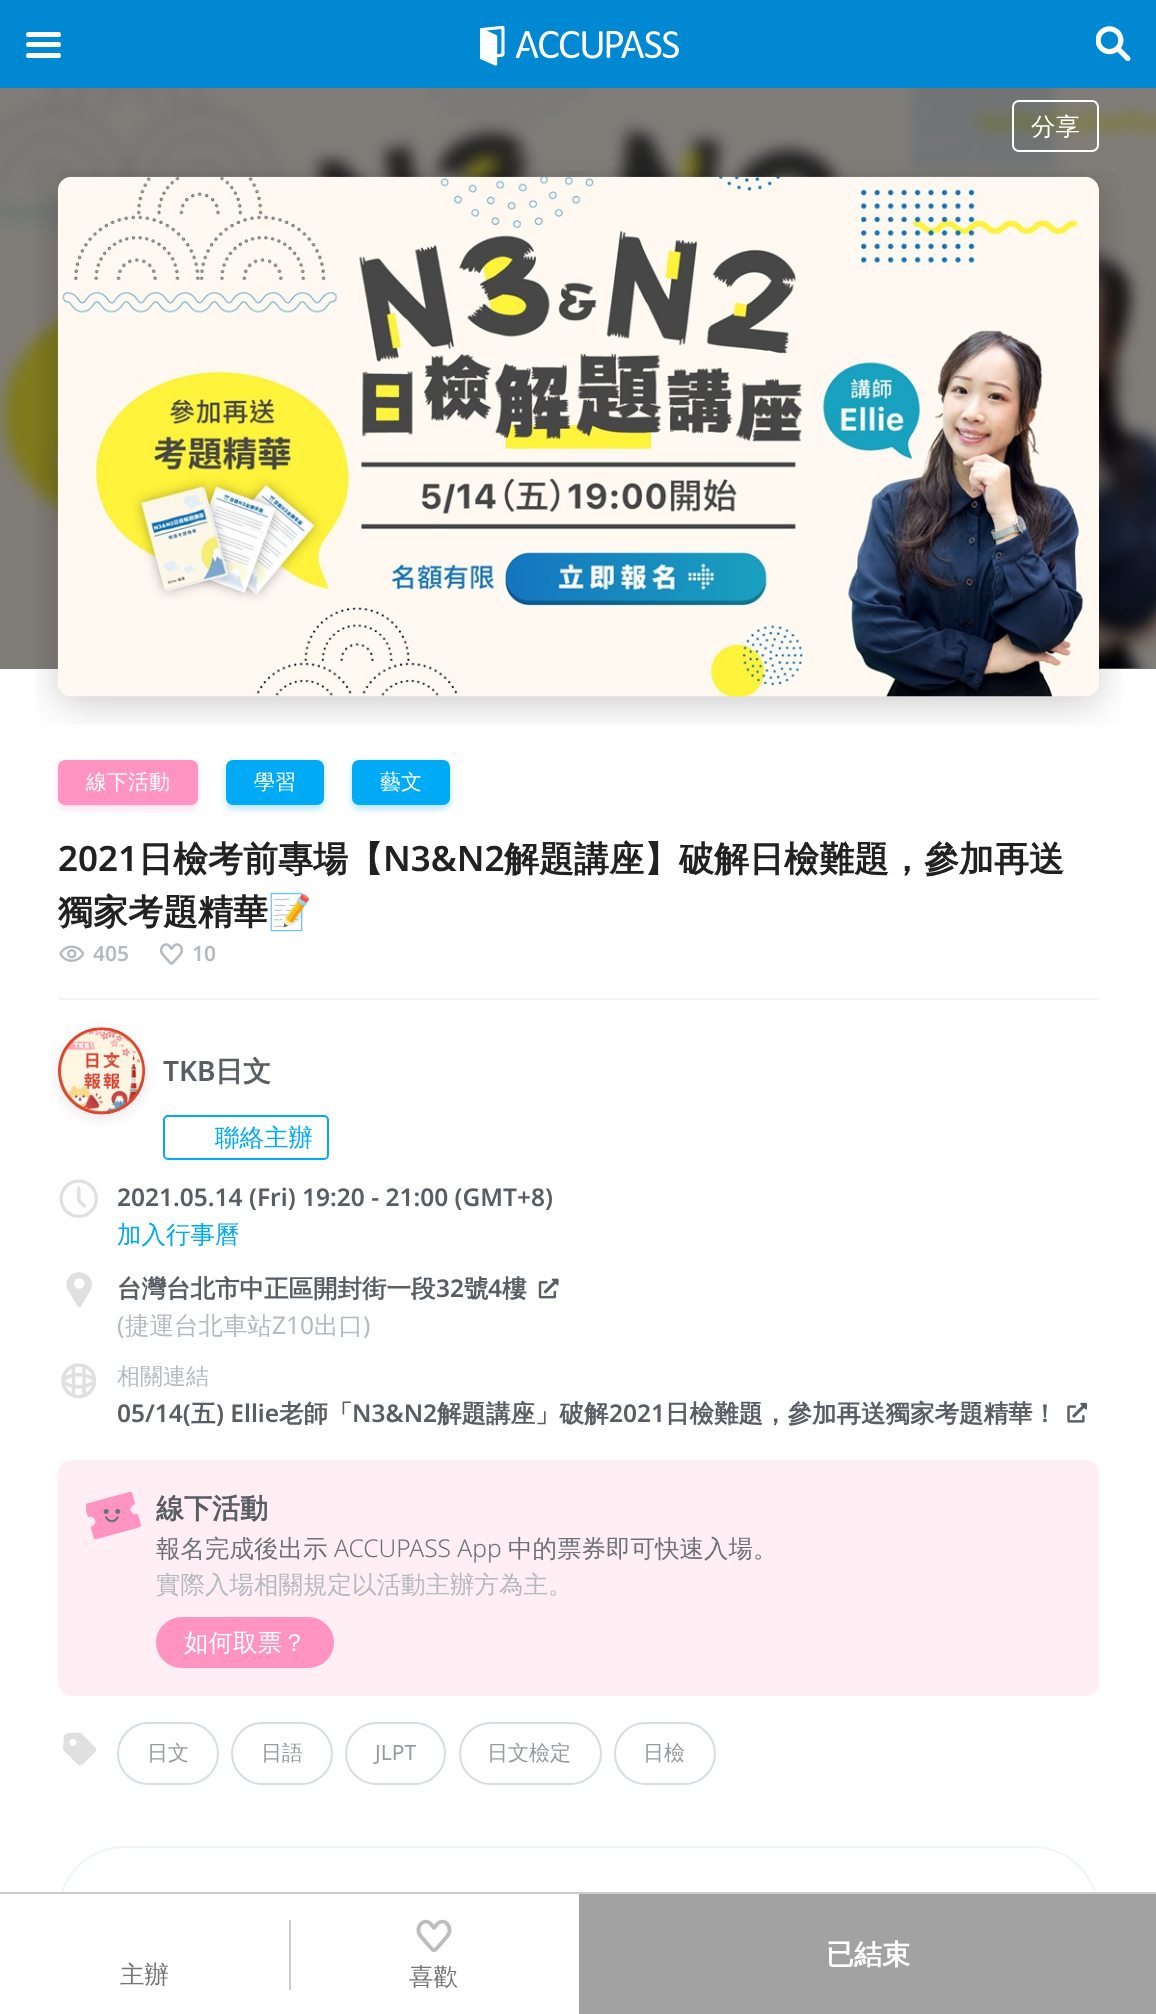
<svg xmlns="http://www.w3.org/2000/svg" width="1156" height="2014">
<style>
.a{font:500 24.5px WenQuanYi Zen Hei;fill:#fff}
.b{font:500 21px WenQuanYi Zen Hei;fill:#fff}
.c{font:600 35px Noto Sans;fill:#212121}
.d{font:bold 35px WenQuanYi Zen Hei;fill:#212121}
.e{font:bold 35px Noto Color Emoji;fill:#212121}
.f{font:600 21px Noto Sans;fill:#b5bac1}
.g{font:600 28px Noto Sans;fill:#595e64}
.h{font:bold 28px WenQuanYi Zen Hei;fill:#595e64}
.i{font:500 24.5px WenQuanYi Zen Hei;fill:#00aaf5}
.j{font:600 24.5px Noto Sans;fill:#595e64}
.k{font:bold 24.5px WenQuanYi Zen Hei;fill:#595e64}
.l{font:24.5px Noto Sans;fill:#b5bac1}
.m{font:500 24.5px WenQuanYi Zen Hei;fill:#b5bac1}
.n{font:500 23px WenQuanYi Zen Hei;fill:#b5bac1}
.o{font:500 24.5px WenQuanYi Zen Hei;fill:#6d7278}
.p{font:300 24.5px Noto Sans;fill:#6d7278}
.q{font:500 21px WenQuanYi Zen Hei;fill:#959ba1}
.r{font:21px Noto Sans;fill:#959ba1}
.s{font:bold 28px WenQuanYi Zen Hei;fill:#fff}
.t{font:500 24.5px WenQuanYi Zen Hei;fill:#757575}
</style>
<rect width="100%" height="100%" fill="#fff"/>
<path fill="#0088d2" d="M0 0h1156v88H0z"/>
<image href="1.png" x="480" y="25" width="199" height="41"/>
<rect fill="#fff" x="26" y="32" width="35" height="5" rx="2.5"/>
<rect fill="#fff" x="26" y="42" width="35" height="5" rx="2.5"/>
<rect fill="#fff" x="26" y="53" width="35" height="5" rx="2.5"/>
<image href="2.png" x="1096" y="26" width="35" height="35"/>
<path fill="#808080" d="M0 667h1156v2H0z"/>
<image href="3.png" x="0" y="88" width="1156" height="581"/>
<rect fill="none" stroke="#fff" stroke-width="2" x="1013" y="101" width="85" height="50" rx="6"/>
<rect fill="#0000001a" filter="blur(14px)" x="58" y="184" width="1041" height="520" rx="14"/>
<image href="4.png" x="36" y="171" width="1085" height="554"/>
<rect fill="#ff93c24d" filter="blur(3.5px)" x="58" y="763" width="140" height="46" rx="7"/>
<rect fill="#ff93c2" x="58" y="760" width="140" height="45" rx="7"/>
<rect fill="#00aaf54d" filter="blur(3.5px)" x="226" y="763" width="98" height="46" rx="7"/>
<rect fill="#00aaf5" x="226" y="760" width="98" height="45" rx="7"/>
<rect fill="#00aaf54d" filter="blur(3.5px)" x="352" y="763" width="98" height="46" rx="7"/>
<rect fill="#00aaf5" x="352" y="760" width="98" height="45" rx="7"/>
<image href="5.png" x="59" y="945" width="26" height="17"/>
<image href="6.png" x="159" y="943" width="25" height="22"/>
<path fill="#f5f5f5" d="M58 998h1041v2H58z"/>
<rect fill="none" stroke="#00aaf5" stroke-width="2" x="164" y="1116" width="164" height="43" rx="4"/>
<rect fill="#0000001a" filter="blur(7px)" x="58" y="1031" width="87" height="87" rx="43.5"/>
<image href="7.png" x="57" y="1027" width="89" height="88"/>
<image href="8.png" x="59" y="1179" width="39" height="39"/>
<image href="9.png" x="66" y="1272" width="26" height="36"/>
<image href="10.png" x="538" y="1278" width="21" height="21"/>
<image href="11.png" x="61" y="1363" width="36" height="36"/>
<image href="12.png" x="1067" y="1402" width="21" height="21"/>
<rect fill="#ffeef3" x="58" y="1460" width="1041" height="236" rx="14"/>
<image href="13.png" x="86" y="1491" width="55" height="49"/>
<rect fill="#ff93c2" x="156" y="1617" width="178" height="51" rx="25.5"/>
<image href="14.png" x="63" y="1732" width="33" height="34"/>
<rect fill="none" stroke="#d8dde4" stroke-width="2" x="118" y="1723" width="100" height="61" rx="30.5"/>
<rect fill="none" stroke="#d8dde4" stroke-width="2" x="232" y="1723" width="100" height="61" rx="30.5"/>
<rect fill="none" stroke="#d8dde4" stroke-width="2" x="346" y="1723" width="99" height="61" rx="30.5"/>
<rect fill="none" stroke="#d8dde4" stroke-width="2" x="460" y="1723" width="141" height="61" rx="30.5"/>
<rect fill="none" stroke="#d8dde4" stroke-width="2" x="615" y="1723" width="100" height="61" rx="30.5"/>
<rect fill="none" stroke="#eff4fb" stroke-width="2" x="59" y="1847" width="1039" height="131" rx="65.5"/>
<path fill="#fff" d="M58 1894h521v85H58z"/>
<path fill="#ccc" d="M0 1892h1156v2H0z"/>
<path fill="#a2a2a2" d="M579 1894h577v120H579z"/>
<path fill="#ccc" d="M289 1920h2v70H289z"/>
<image href="15.png" x="416" y="1919" width="36" height="33"/>
<text class="a" x="1031" y="135">分享</text>
<text class="b" x="86" y="789">線下活動</text>
<text class="b" x="254" y="789">學習</text>
<text class="b" x="380" y="789">藝文</text>
<text class="c" x="58" y="871">2021</text>
<text class="d" x="138" y="871">日檢考前專場【</text>
<text class="c" x="383" y="871">N3&amp;N2</text>
<text class="d" x="504" y="871">解題講座】破解日檢難題，參加再送</text>
<text class="d" x="58" y="924">獨家考題精華</text>
<text class="e" x="268" y="924">📝</text>
<text class="f" x="93" y="961">405</text>
<text class="f" x="192" y="961">10</text>
<text class="g" x="163" y="1081">TKB</text>
<text class="h" x="215" y="1081">日文</text>
<text class="i" x="215" y="1146">聯絡主辦</text>
<text class="j" x="117" y="1206">2021.05.14 (Fri) 19:20 - 21:00 (GMT+8)</text>
<text class="i" x="117" y="1243">加入行事曆</text>
<text class="k" x="117" y="1297">台灣台北市中正區開封街一段</text>
<text class="j" x="436" y="1297">32</text>
<text class="k" x="464" y="1297">號</text>
<text class="j" x="488" y="1297">4</text>
<text class="k" x="502" y="1297">樓</text>
<text class="l" x="117" y="1334">(</text>
<text class="m" x="125" y="1334">捷運台北車站</text>
<text class="l" x="272" y="1334">Z10</text>
<text class="m" x="314" y="1334">出口</text>
<text class="l" x="363" y="1334">)</text>
<text class="n" x="117" y="1384">相關連結</text>
<text class="j" x="117" y="1422">05/14(</text>
<text class="k" x="191" y="1422">五</text>
<text class="j" x="216" y="1422">) Ellie</text>
<text class="k" x="279" y="1422">老師「</text>
<text class="j" x="352" y="1422">N3&amp;N2</text>
<text class="k" x="437" y="1422">解題講座」破解</text>
<text class="j" x="609" y="1422">2021</text>
<text class="k" x="665" y="1422">日檢難題，參加再送獨家考題精華！</text>
<text class="h" x="156" y="1518">線下活動</text>
<text class="o" x="156" y="1557">報名完成後出示</text>
<text class="p" x="334" y="1557">ACCUPASS App</text>
<text class="o" x="508" y="1557">中的票券即可快速入場。</text>
<text class="m" x="156" y="1593">實際入場相關規定以活動主辦方為主。</text>
<text class="a" x="184" y="1651">如何取票？</text>
<text class="q" x="147" y="1760">日文</text>
<text class="q" x="261" y="1760">日語</text>
<text class="r" x="375" y="1760">JLPT</text>
<text class="q" x="487" y="1760">日文檢定</text>
<text class="q" x="643" y="1760">日檢</text>
<text class="s" x="826" y="1964">已結束</text>
<text class="t" x="120" y="1983">主辦</text>
<text class="t" x="409" y="1985">喜歡</text>
</svg>
